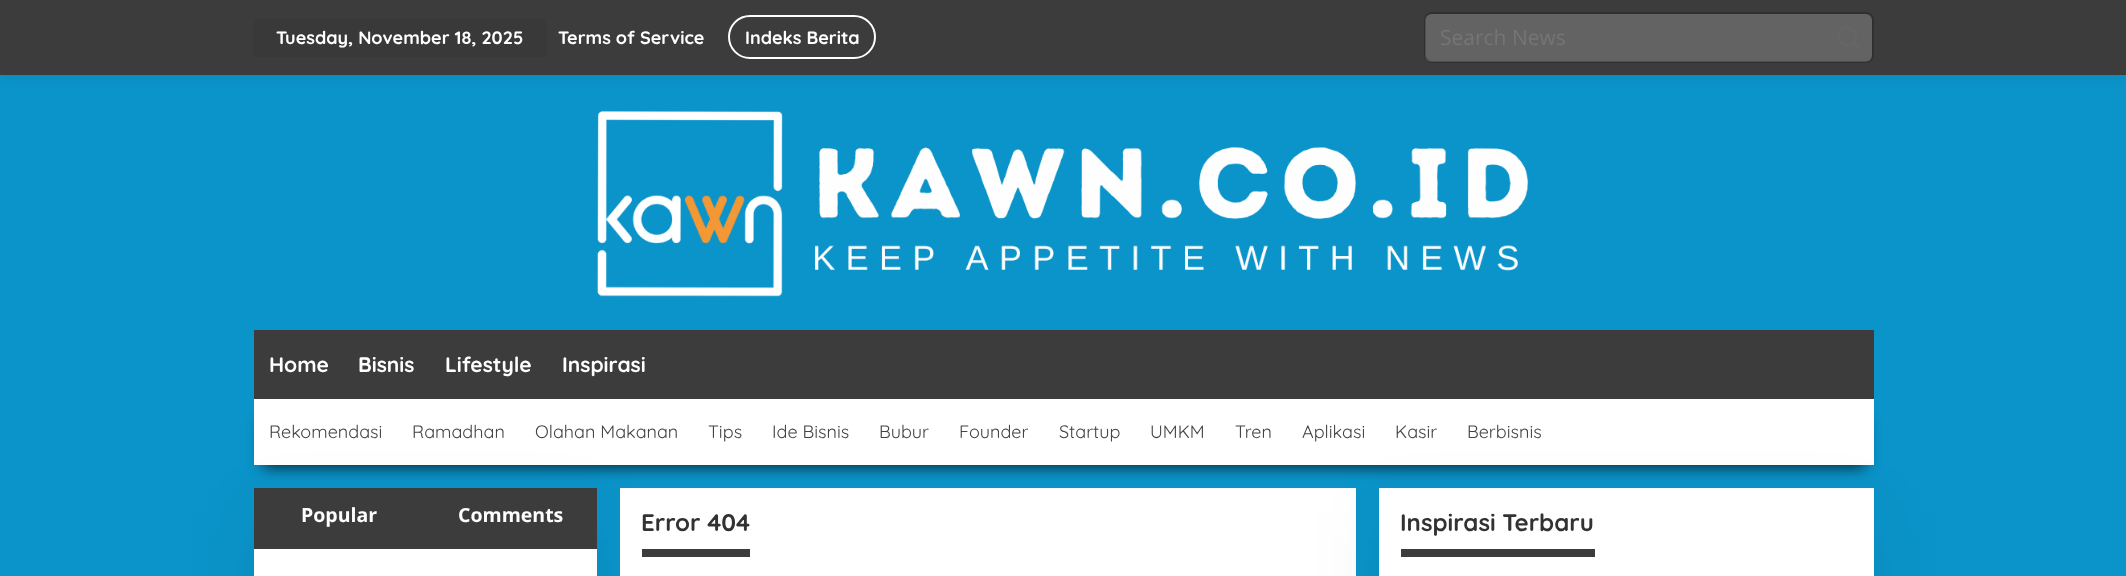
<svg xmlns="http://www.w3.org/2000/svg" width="2126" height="576">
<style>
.a{font:bold 18px Quicksand;fill:#fff}
.b{font:21px Open Sans;fill:#757575}
.c{font:bold 21px Quicksand;fill:#fff}
.d{font:18px Quicksand;fill:#444}
.e{font:bold 19.5px Open Sans;fill:#fff}
.f{font:bold 24px Quicksand;fill:#323233}
</style>
<rect width="100%" height="100%" fill="#0b94c9"/>
<path fill="#0000001a" filter="blur(7.5px)" d="M0 0h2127v75H0z"/>
<path fill="#3c3c3c" d="M0 0h2126v75H0z"/>
<path fill="#393939" d="M254 18h292v39H254z"/>
<rect fill="none" stroke="#fff" stroke-width="2" x="729" y="16" width="146" height="42" rx="21"/>
<rect fill="#636363" x="1425" y="14" width="447" height="48" rx="6"/>
<rect fill="none" stroke="#00000033" stroke-width="2" x="1425" y="13" width="448" height="49" rx="7"/>
<circle fill="none" stroke="#666" stroke-width="2.2" cx="1847" cy="36.5" r="9"/>
<path fill="none" stroke="#666" stroke-width="2.2" stroke-linecap="round" stroke-linejoin="round" d="M1858 47.5l-5-5"/>
<image href="1.png" x="597" y="111" width="932" height="186"/>
<path fill="#3c3c3c" d="M254 330h1620v69H254z"/>
<path fill="#000000bf" filter="blur(7.5px)" d="M263 419h1602v48H263z"/>
<path fill="#fff" d="M254 399h1620v66H254z"/>
<path fill="#00000012" filter="blur(34px)" d="M254 512h343v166H254z"/>
<path fill="#fff" d="M254 549h343v27H254z"/>
<path fill="#3c3c3c" d="M254 488h343v61H254z"/>
<path fill="#fff" d="M620 488h736v88H620z"/>
<path fill="#3c3c3c" d="M642 549h108v8H642z"/>
<path fill="#00000012" filter="blur(34px)" d="M1379 512h495v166H1379z"/>
<path fill="#fff" d="M1379 488h495v88H1379z"/>
<path fill="#3c3c3c" d="M1401 549h194v8H1401z"/>
<text class="a" x="276" y="44">Tuesday, November 18, 2025</text>
<text class="a" x="558" y="44">Terms of Service</text>
<text class="a" x="745" y="44">Indeks Berita</text>
<text class="b" x="1440" y="45">Search News</text>
<text class="c" x="269" y="372">Home</text>
<text class="c" x="358" y="372">Bisnis</text>
<text class="c" x="445" y="372">Lifestyle</text>
<text class="c" x="562" y="372">Inspirasi</text>
<text class="d" x="269" y="438">Rekomendasi</text>
<text class="d" x="412" y="438">Ramadhan</text>
<text class="d" x="535" y="438">Olahan Makanan</text>
<text class="d" x="708" y="438">Tips</text>
<text class="d" x="772" y="438">Ide Bisnis</text>
<text class="d" x="879" y="438">Bubur</text>
<text class="d" x="959" y="438">Founder</text>
<text class="d" x="1059" y="438">Startup</text>
<text class="d" x="1150" y="438">UMKM</text>
<text class="d" x="1235" y="438">Tren</text>
<text class="d" x="1302" y="438">Aplikasi</text>
<text class="d" x="1395" y="438">Kasir</text>
<text class="d" x="1467" y="438">Berbisnis</text>
<text class="e" x="301" y="522">Popular</text>
<text class="e" x="458" y="522">Comments</text>
<text class="f" x="641" y="531">Error 404</text>
<text class="f" x="1400" y="531">Inspirasi Terbaru</text>
</svg>
